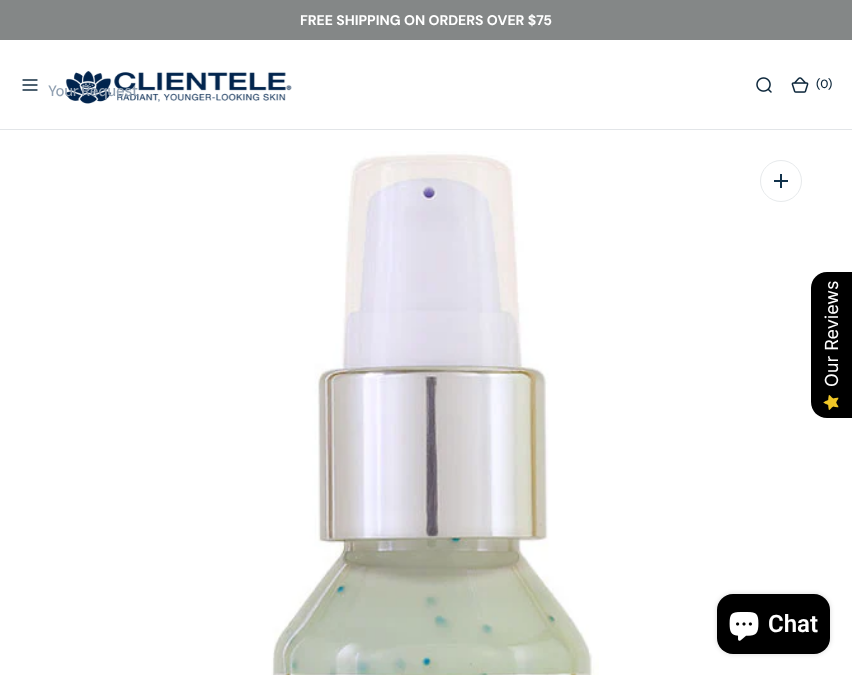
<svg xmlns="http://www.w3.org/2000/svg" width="852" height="675">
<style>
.a{font:bold 14px DM Sans;fill:#fff}
.b{font:500 15px 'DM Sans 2';letter-spacing:-0.25px;fill:#93a2b3}
.c{font:500 12px DM Sans;fill:#0e283c}
.d{font:18px Inter;fill:#fff}
.e{font:600 24px Roboto;fill:#fff}
</style>
<rect width="100%" height="100%" fill="#fff"/>
<path fill="#848787" d="M0 0h852v40H0z"/>
<path fill="#e2e5e8" d="M0 129h852v1H0z"/>
<image href="1.png" x="22" y="79" width="16" height="12"/>
<image href="2.png" x="65" y="71" width="227" height="33"/>
<image href="3.png" x="756" y="77" width="16" height="16"/>
<image href="4.png" x="791" y="77" width="18" height="16"/>
<image href="5.png" x="271" y="151" width="328" height="524"/>
<circle fill="none" stroke="#e7eaec" cx="781" cy="181" r="20.5"/>
<image href="6.png" x="774" y="174" width="14" height="14"/>
<path fill="#000" d="M811 402v-114c0-9 7-16 16-16h25v146h-25c-9 0-16-7-16-16z"/>
<image href="7.png" x="823" y="395" width="16" height="15"/>
<rect fill="#00000026" filter="blur(2.5px)" x="717" y="594" width="113" height="60" rx="16"/>
<rect fill="#000" x="717" y="594" width="113" height="60" rx="16"/>
<image href="8.png" x="729" y="612" width="30" height="29"/>
<text class="a" x="300" y="25">FREE SHIPPING ON ORDERS OVER $75</text>
<text class="b" x="48" y="96" word-spacing="-1">Your Request</text>
<text class="c" x="816" y="88">(0)</text>
<text class="d" x="838" y="387" transform="rotate(-90 838 387)">Our Reviews</text>
<text class="e" x="768" y="632">Chat</text>
</svg>
